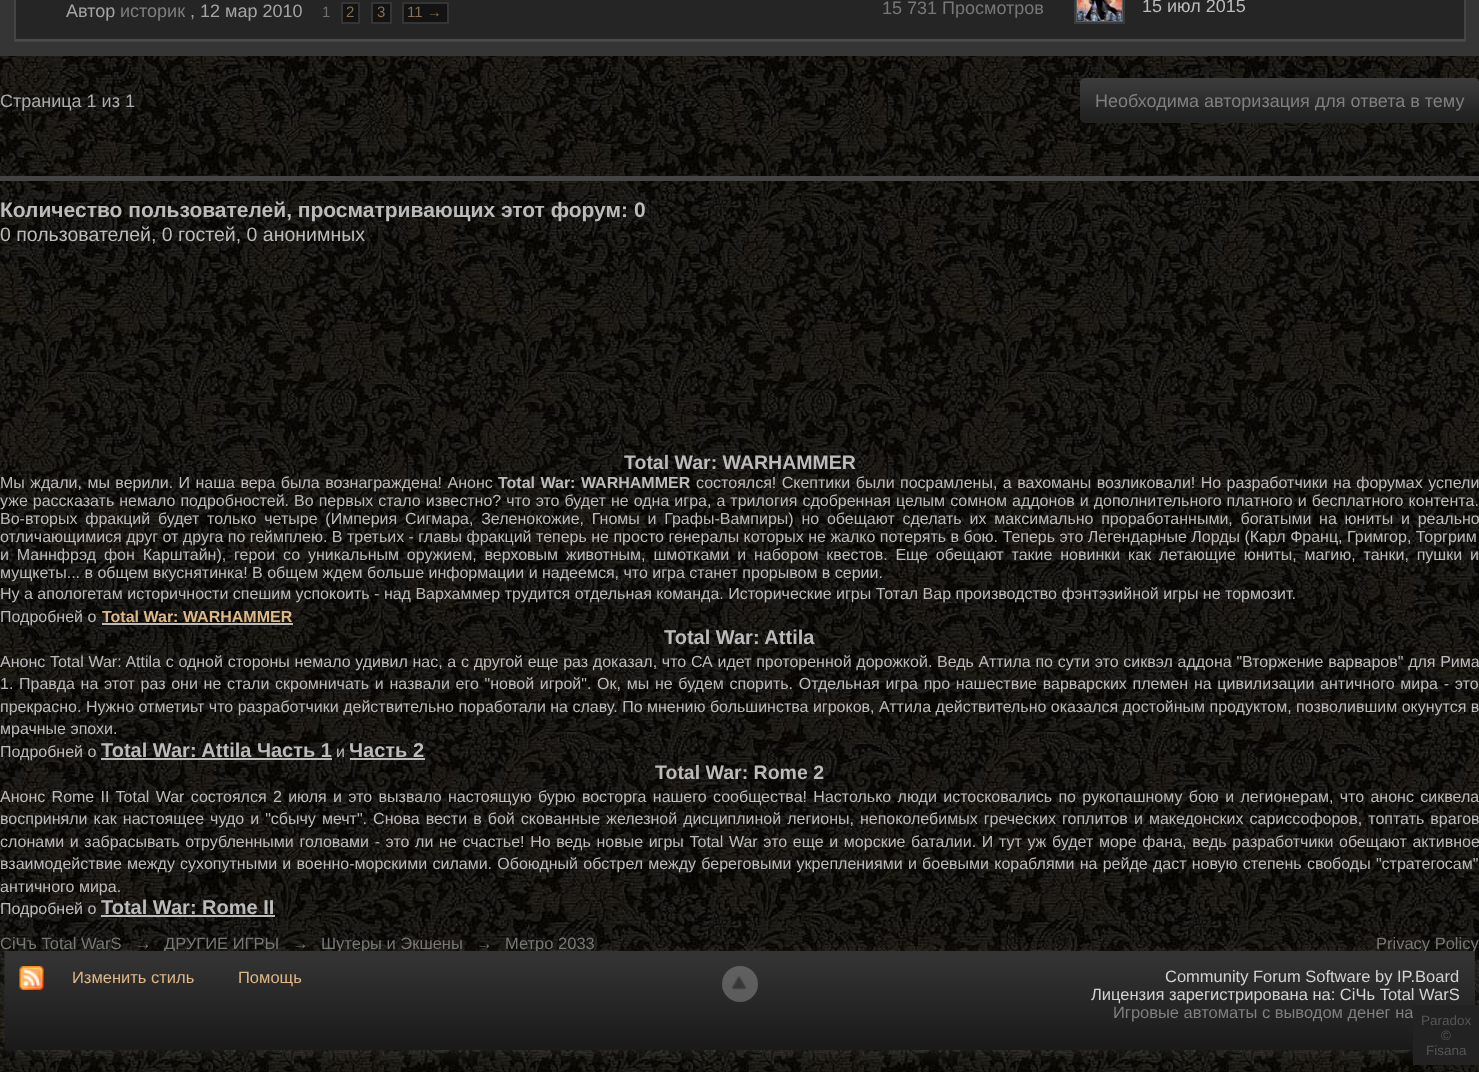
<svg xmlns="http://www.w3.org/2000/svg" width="1479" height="1072">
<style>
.a{font:18px Liberation Sans;fill:#a4a4a4}
.b{font:18px Liberation Sans;fill:#7f7f7f}
.c{font:15px Liberation Sans;fill:#707070}
.d{font:15px Liberation Sans;fill:#826f56}
.e{font:18px Liberation Sans;fill:#777}
.f{font:18px Liberation Sans;fill:#bbb}
.g{font:18px Liberation Sans;fill:#acacac}
.h{font:bold 21px Liberation Sans;fill:#bbb}
.i{font:19.5px Liberation Sans;fill:#bbb}
.j{font:bold 19.5px Liberation Sans;fill:#bbb}
.k{font:16px Liberation Sans;fill:#bbb}
.l{font:bold 16px Liberation Sans;fill:#bbb}
.m{font:bold 16px Liberation Sans;fill:#deb887}
.n{font:bold 20px Liberation Sans;fill:#bbb}
.o{font:16.5px Liberation Sans;fill:#777}
.p{font:16.5px Liberation Sans;fill:#deb887}
.q{font:16.5px Liberation Sans;fill:#d2d2d2}
.r{font:16.5px Liberation Sans;fill:#7f7f7f}
.s{font:13.5px Liberation Sans;fill:#555}
</style>
<rect width="100%" height="100%" fill="#fff"/>
<image href="1.png" x="0" y="56" width="1479" height="1016"/>
<path fill="#353535" d="M0 0h1479v56H0z"/>
<path fill="#252525" d="M16 0h1448v39H16z"/>
<path fill="none" stroke="#444" stroke-width="2" d="M15 -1h1450v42H15z"/>
<path fill="#131313" stroke="#353535" stroke-width="2" d="M342 3h17v20H342z"/>
<path fill="#131313" stroke="#353535" stroke-width="2" d="M372 3h19v20H372z"/>
<path fill="#131313" stroke="#353535" stroke-width="2" d="M403 3h45v20H403z"/>
<path fill="#4b4b4b" d="M15 39h1451v2H15z"/>
<path fill="#5b5b5b" stroke="#3b3b3b" stroke-width="2" d="M1075 -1h49v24H1075z"/>
<image href="2.png" x="1077" y="0" width="45" height="21"/>
<rect fill="#212121" x="1080" y="78" width="399" height="45" rx="5"/>
<image href="3.png" x="1080" y="78" width="399" height="42"/>
<path fill="#444" d="M0 176h1479v5H0z"/>
<path fill="#bbb" d="M102 623h191v2H102z"/>
<path fill="#bbb" d="M101 758h231v2H101z"/>
<path fill="#bbb" d="M350 758h75v2H350z"/>
<path fill="#bbb" d="M101 915h174v2H101z"/>
<path fill="#ffffff1a" filter="blur(7px)" d="M5 954h1470v99H5z"/>
<text class="a" x="66" y="17">Автор</text>
<text class="b" x="120" y="17">историк</text>
<text class="a" x="190" y="17">, 12 мар 2010</text>
<text class="c" x="322" y="17">1</text>
<text class="d" x="346" y="17">2</text>
<text class="d" x="377" y="17">3</text>
<text class="d" x="407" y="17">11 →</text>
<text class="e" x="882" y="14">15 731 Просмотров</text>
<text class="f" x="1142" y="12">15 июл 2015</text>
<text class="g" x="0" y="107">Страница 1 из 1</text>
<text class="b" x="1095" y="107">Необходима авторизация для ответа в тему</text>
<text class="h" x="0" y="217">Количество пользователей, просматривающих этот форум: 0</text>
<text class="i" x="0" y="241">0 пользователей, 0 гостей, 0 анонимных</text>
<text class="j" x="624" y="469">Total War: WARHAMMER</text>
<text class="k" x="0" y="488" word-spacing="1">Мы ждали, мы верили. И наша вера была вознаграждена! Анонс</text>
<text class="l" x="498" y="488" word-spacing="1">Total War: WARHAMMER</text>
<text class="k" x="696" y="488" word-spacing="1">состоялся! Скептики были посрамлены, а вахоманы возликовали! Но разработчики на форумах успели</text>
<text class="k" x="0" y="506" word-spacing="0.6">уже рассказать немало подробностей. Во первых стало известно? что это будет не одна игра, а трилогия сдобренная целым сомном аддонов и дополнительного платного и бесплатного контента.</text>
<text class="k" x="0" y="524" word-spacing="3.3">Во-вторых фракций будет только четыре (Империя Сигмара, Зеленокожие, Гномы и Графы-Вампиры) но обещают сделать их максимально проработанными, богатыми на юниты и реально</text>
<text class="k" x="0" y="542">отличающимися друг от друга по геймплею. В третьих - главы фракций теперь не просто генералы которых не жалко потерять в бою. Теперь это Легендарные Лорды (Карл Франц, Гримгор, Торгрим</text>
<text class="k" x="0" y="560" word-spacing="3.4">и Маннфрэд фон Карштайн), герои со уникальным оружием, верховым животным, шмотками и набором квестов. Еще обещают такие новинки как летающие юниты, магию, танки, пушки и</text>
<text class="k" x="0" y="578">мущкеты... в общем вкуснятинка! В общем ждем больше информации и надеемся, что игра станет прорывом в серии.</text>
<text class="k" x="0" y="599">Ну а апологетам историчности спешим успокоить - над Вархаммер трудится отдельная команда. Исторические игры Тотал Вар производство фэнтэзийной игры не тормозит.</text>
<text class="k" x="0" y="622">Подробней о</text>
<text class="m" x="102" y="622">Total War: WARHAMMER</text>
<text class="n" x="664" y="644">Total War: Attila</text>
<text class="k" x="0" y="667" word-spacing="0.25">Анонс Total War: Attila с одной стороны немало удивил нас, а с другой еще раз доказал, что СА идет проторенной дорожкой. Ведь Аттила по сути это сиквэл аддона "Вторжение варваров" для Рима</text>
<text class="k" x="0" y="689" word-spacing="1.25">1. Правда на этот раз они не стали скромничать и назвали его "новой игрой". Ок, мы не будем спорить. Отдельная игра про нашествие варварских племен на цивилизации античного мира - это</text>
<text class="k" x="0" y="712">прекрасно. Нужно отметиьт что разработчики действительно поработали на славу. По мнению большинства игроков, Аттила действительно оказался достойным продуктом, позволившим окунутся в</text>
<text class="k" x="0" y="734">мрачные эпохи.</text>
<text class="k" x="0" y="757">Подробней о</text>
<text class="n" x="101" y="757">Total War: Attila Часть 1</text>
<text class="k" x="336" y="757">и</text>
<text class="n" x="349" y="757">Часть 2</text>
<text class="j" x="655" y="779">Total War: Rome 2</text>
<text class="k" x="0" y="802" word-spacing="1.9">Анонс Rome II Total War состоялся 2 июля и это вызвало настоящую бурю восторга нашего сообщества! Настолько люди истосковались по рукопашному бою и легионерам, что анонс сиквела</text>
<text class="k" x="0" y="824" word-spacing="1.6">восприняли как настоящее чудо и "сбычу мечт". Снова вести в бой скованные железной дисциплиной легионы, непоколебимых греческих гоплитов и македонских сариссофоров, топтать врагов</text>
<text class="k" x="0" y="847" word-spacing="1.2">слонами и забрасывать отрубленными головами - это ли не счастье! Но ведь новые игры Total War это еще и морские баталии. И тут уж будет море фана, ведь разработчики обещают активное</text>
<text class="k" x="0" y="869" word-spacing="0.8">взаимодействие между сухопутными и военно-морскими силами. Обоюдный обстрел между береговыми укреплениями и боевыми кораблями на рейде даст новую степень свободы "стратегосам"</text>
<text class="k" x="0" y="892">античного мира.</text>
<text class="k" x="0" y="914">Подробней о</text>
<text class="n" x="101" y="914">Total War: Rome II</text>
<text class="o" x="0" y="949">СiЧъ Total WarS</text>
<text class="o" x="135" y="949">→</text>
<text class="o" x="164" y="949">ДРУГИЕ ИГРЫ</text>
<text class="o" x="292" y="949">→</text>
<text class="o" x="321" y="949">Шутеры и Экшены</text>
<text class="o" x="476" y="949">→</text>
<text class="o" x="505" y="949">Метро 2033</text>
<text class="o" x="1376" y="949">Privacy Policy</text>
<path fill="#2b2b2b" d="M1474 951h1v54H1474z"/>
<image href="4.png" x="4" y="951" width="1471" height="99"/>
<image href="5.png" x="19" y="966" width="25" height="24"/>
<text class="p" x="72" y="983">Изменить стиль</text>
<text class="p" x="238" y="983">Помощь</text>
<circle fill="#aaaaaa66" cx="740" cy="984" r="18"/>
<image href="6.png" x="732" y="976" width="15" height="14"/>
<text class="q" x="1165" y="982">Community Forum Software by IP.Board</text>
<text class="q" x="1091" y="1000">Лицензия зарегистрирована на: СiЧь Total WarS</text>
<text class="r" x="1113" y="1018">Игровые автоматы с выводом денег на</text>
<path fill="#222" d="M1413 1005h66v60H1413z"/>
<text class="s" x="1421" y="1025">Paradox</text>
<text class="s" x="1441" y="1040">©</text>
<text class="s" x="1426" y="1055">Fisana</text>
</svg>
